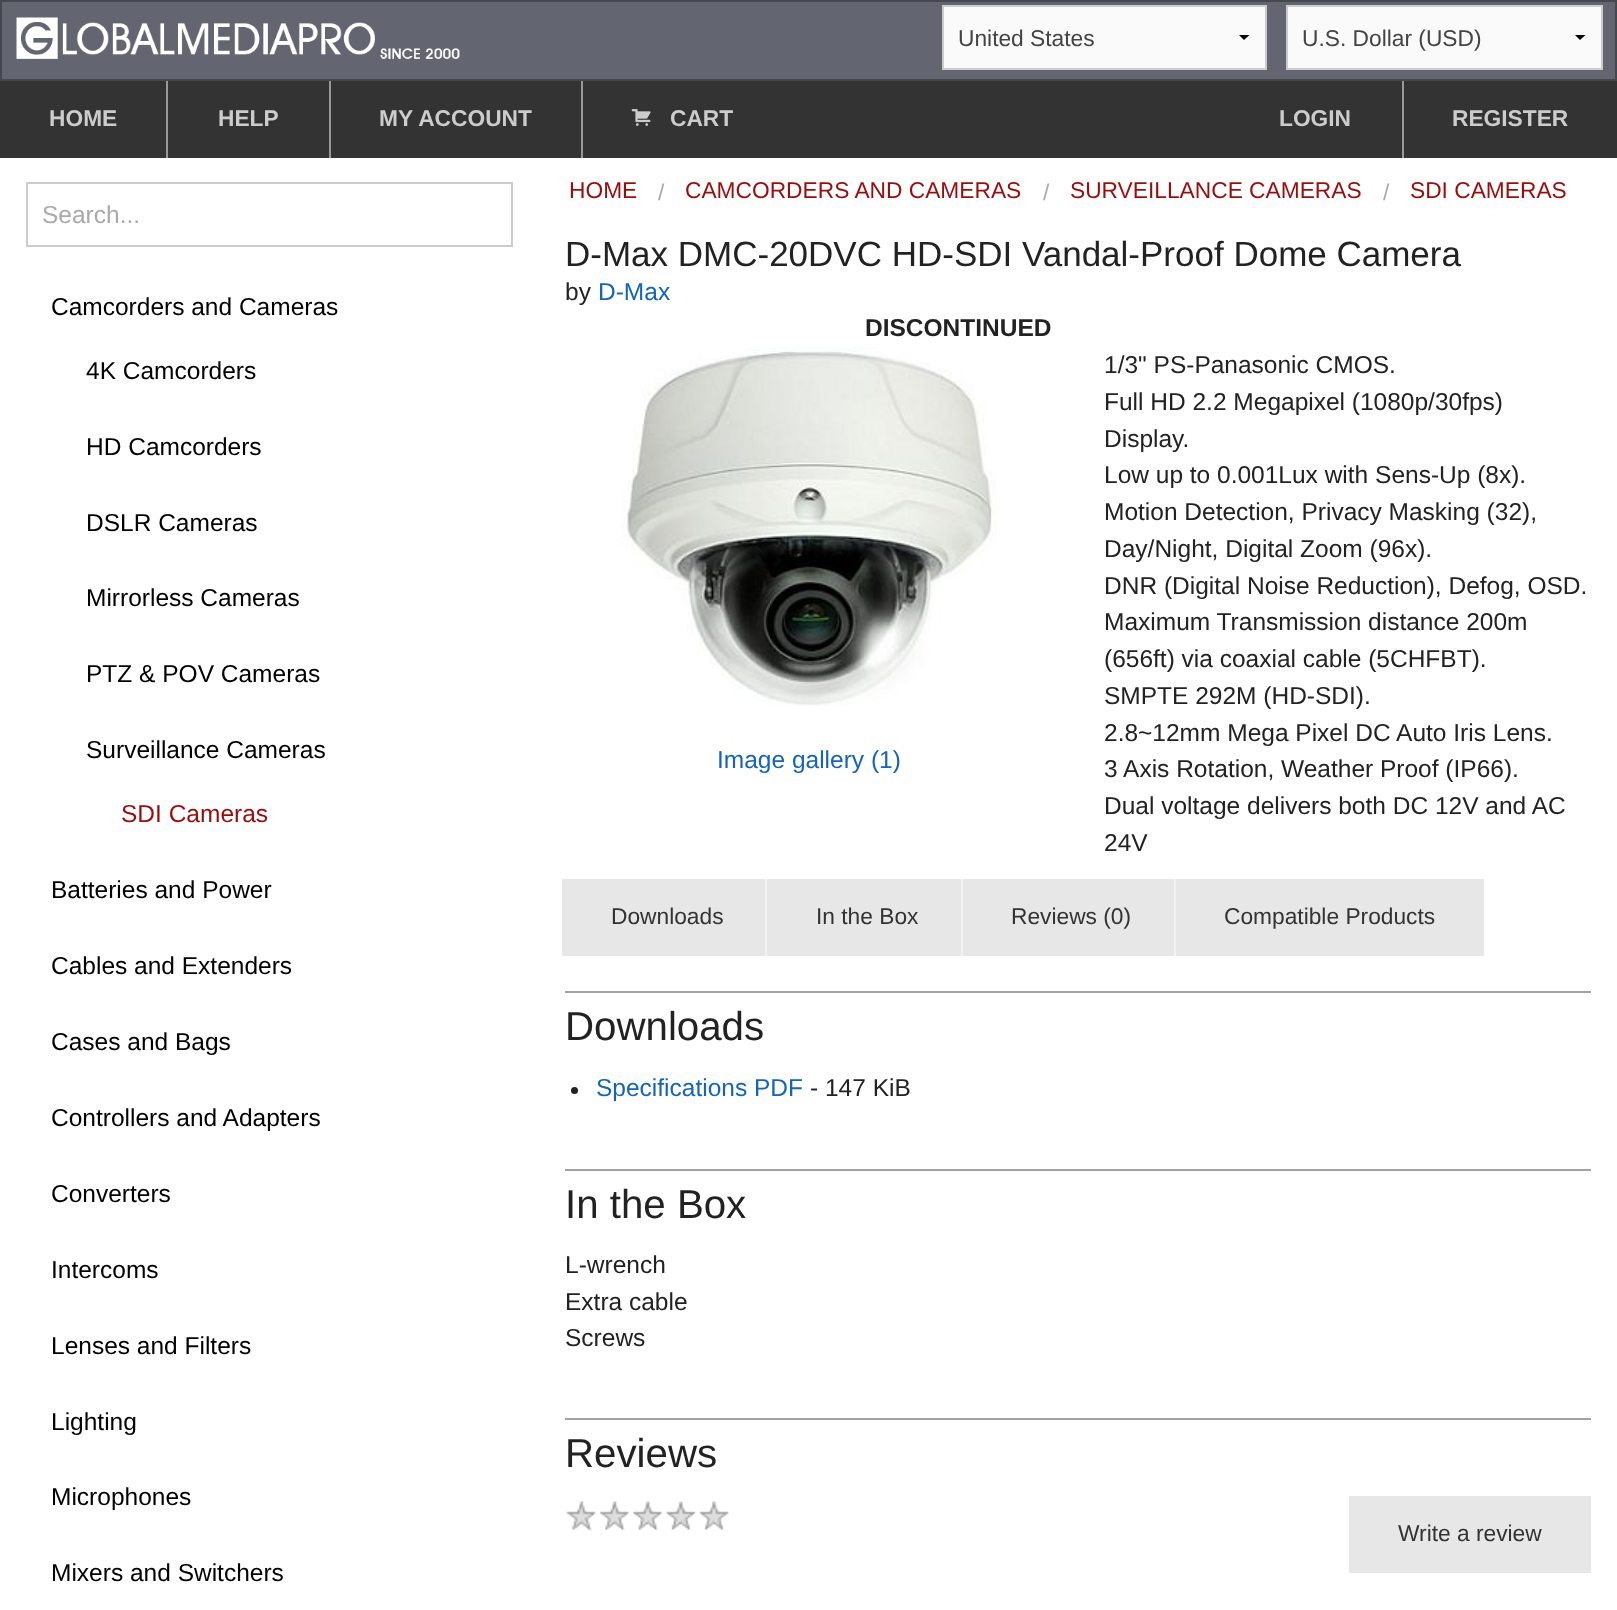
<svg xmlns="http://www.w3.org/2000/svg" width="1617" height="1610">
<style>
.a{font:22.75px Liberation Sans;fill:#444}
.b{font:bold 22.75px Liberation Sans;fill:#ccc}
.c{font:24.5px Liberation Sans;fill:#aaa}
.d{font:24.5px Liberation Sans;fill:#000}
.e{font:24.5px Liberation Sans;fill:#9b0c0c}
.f{font:22.75px Liberation Sans;fill:#9b0c0c}
.g{font:22.75px Liberation Sans;fill:#aaa}
.h{font:35px Liberation Sans;fill:#222}
.i{font:24.5px Liberation Sans;fill:#222}
.j{font:24.5px Liberation Sans;fill:#1464bd}
.k{font:bold 24.5px Liberation Sans;fill:#222}
.l{font:22.75px Liberation Sans;fill:#333}
.m{font:40.25px Liberation Sans;fill:#222}
</style>
<rect width="100%" height="100%" fill="#636571"/>
<path fill="none" stroke="#45474f" stroke-width="2" d="M1 1h1615v79H1z"/>
<image href="1.png" x="16" y="17" width="444" height="42"/>
<path fill="#fafafa" d="M944 7h321v61H944z"/>
<path fill="#000" d="M1249.5 35l-5.5 5l-5-5z"/>
<path fill="none" stroke="#ccc" stroke-width="2" d="M943 6h323v63H943z"/>
<path fill="#fafafa" d="M1288 7h313v61H1288z"/>
<path fill="#000" d="M1585.5 35l-5.5 5l-5-5z"/>
<path fill="none" stroke="#ccc" stroke-width="2" d="M1287 6h315v63H1287z"/>
<path fill="#333" d="M0 81h1617v77H0z"/>
<path fill="#999" d="M166 81h2v77H166z"/>
<path fill="#999" d="M329 81h2v77H329z"/>
<path fill="#999" d="M581 81h2v77H581z"/>
<image href="2.png" x="631" y="109" width="20" height="17"/>
<path fill="#999" d="M1402 81h2v77H1402z"/>
<path fill="#fff" d="M0 158h1617v1452H0z"/>
<path fill="none" stroke="#ccc" stroke-width="2" d="M27 183h485v63H27z"/>
<image href="3.png" x="621" y="347" width="376" height="359"/>
<path fill="#e7e7e7" d="M562 879h203v77H562z"/>
<path fill="#e7e7e7" d="M767 879h194v77H767z"/>
<path fill="#f3f3f3" d="M765 879h2v77H765z"/>
<path fill="#e7e7e7" d="M963 879h211v77H963z"/>
<path fill="#f3f3f3" d="M961 879h2v77H961z"/>
<path fill="#e7e7e7" d="M1176 879h308v77H1176z"/>
<path fill="#f3f3f3" d="M1174 879h2v77H1174z"/>
<path fill="#a2a2a2" d="M565 991h1026v2H565z"/>
<circle fill="#222" cx="574.5" cy="1090.5" r="3.5"/>
<path fill="#a2a2a2" d="M565 1169h1026v2H565z"/>
<path fill="#a2a2a2" d="M565 1418h1026v2H565z"/>
<image href="4.png" x="566" y="1501" width="163" height="31"/>
<path fill="#e7e7e7" d="M1349 1496h242v77H1349z"/>
<text class="a" x="958" y="46">United States</text>
<text class="a" x="1302" y="46">U.S. Dollar (USD)</text>
<text class="b" x="49" y="126">HOME</text>
<text class="b" x="218" y="126">HELP</text>
<text class="b" x="379" y="126">MY ACCOUNT</text>
<text class="b" x="670" y="126">CART</text>
<text class="b" x="1279" y="126">LOGIN</text>
<text class="b" x="1452" y="126">REGISTER</text>
<text class="c" x="42" y="223">Search...</text>
<text class="d" x="51" y="315">Camcorders and Cameras</text>
<text class="d" x="86" y="379">4K Camcorders</text>
<text class="d" x="86" y="455">HD Camcorders</text>
<text class="d" x="86" y="531">DSLR Cameras</text>
<text class="d" x="86" y="606">Mirrorless Cameras</text>
<text class="d" x="86" y="682">PTZ &amp; POV Cameras</text>
<text class="d" x="86" y="758">Surveillance Cameras</text>
<text class="e" x="121" y="822">SDI Cameras</text>
<text class="d" x="51" y="898">Batteries and Power</text>
<text class="d" x="51" y="974">Cables and Extenders</text>
<text class="d" x="51" y="1050">Cases and Bags</text>
<text class="d" x="51" y="1126">Controllers and Adapters</text>
<text class="d" x="51" y="1202">Converters</text>
<text class="d" x="51" y="1278">Intercoms</text>
<text class="d" x="51" y="1354">Lenses and Filters</text>
<text class="d" x="51" y="1430">Lighting</text>
<text class="d" x="51" y="1505">Microphones</text>
<text class="d" x="51" y="1581">Mixers and Switchers</text>
<text class="f" x="569" y="198">HOME</text>
<text class="g" x="658" y="200">/</text>
<text class="f" x="685" y="198">CAMCORDERS AND CAMERAS</text>
<text class="g" x="1043" y="200">/</text>
<text class="f" x="1070" y="198">SURVEILLANCE CAMERAS</text>
<text class="g" x="1383" y="200">/</text>
<text class="f" x="1410" y="198">SDI CAMERAS</text>
<text class="h" x="565" y="266">D-Max DMC-20DVC HD-SDI Vandal-Proof Dome Camera</text>
<text class="i" x="565" y="300">by</text>
<text class="j" x="598" y="300">D-Max</text>
<text class="k" x="865" y="336">DISCONTINUED</text>
<text class="j" x="717" y="768">Image gallery (1)</text>
<text class="i" x="1104" y="373">1/3" PS-Panasonic CMOS.</text>
<text class="i" x="1104" y="410">Full HD 2.2 Megapixel (1080p/30fps)</text>
<text class="i" x="1104" y="447">Display.</text>
<text class="i" x="1104" y="483">Low up to 0.001Lux with Sens-Up (8x).</text>
<text class="i" x="1104" y="520">Motion Detection, Privacy Masking (32),</text>
<text class="i" x="1104" y="557">Day/Night, Digital Zoom (96x).</text>
<text class="i" x="1104" y="594">DNR (Digital Noise Reduction), Defog, OSD.</text>
<text class="i" x="1104" y="630">Maximum Transmission distance 200m</text>
<text class="i" x="1104" y="667">(656ft) via coaxial cable (5CHFBT).</text>
<text class="i" x="1104" y="704">SMPTE 292M (HD-SDI).</text>
<text class="i" x="1104" y="741">2.8~12mm Mega Pixel DC Auto Iris Lens.</text>
<text class="i" x="1104" y="777">3 Axis Rotation, Weather Proof (IP66).</text>
<text class="i" x="1104" y="814">Dual voltage delivers both DC 12V and AC</text>
<text class="i" x="1104" y="851">24V</text>
<text class="l" x="611" y="924">Downloads</text>
<text class="l" x="816" y="924">In the Box</text>
<text class="l" x="1011" y="924">Reviews (0)</text>
<text class="l" x="1224" y="924">Compatible Products</text>
<text class="m" x="565" y="1040">Downloads</text>
<text class="j" x="596" y="1096">Specifications PDF</text>
<text class="i" x="810" y="1096">- 147 KiB</text>
<text class="m" x="565" y="1218">In the Box</text>
<text class="i" x="565" y="1273">L-wrench</text>
<text class="i" x="565" y="1310">Extra cable</text>
<text class="i" x="565" y="1346">Screws</text>
<text class="m" x="565" y="1467">Reviews</text>
<text class="l" x="1398" y="1541">Write a review</text>
</svg>
